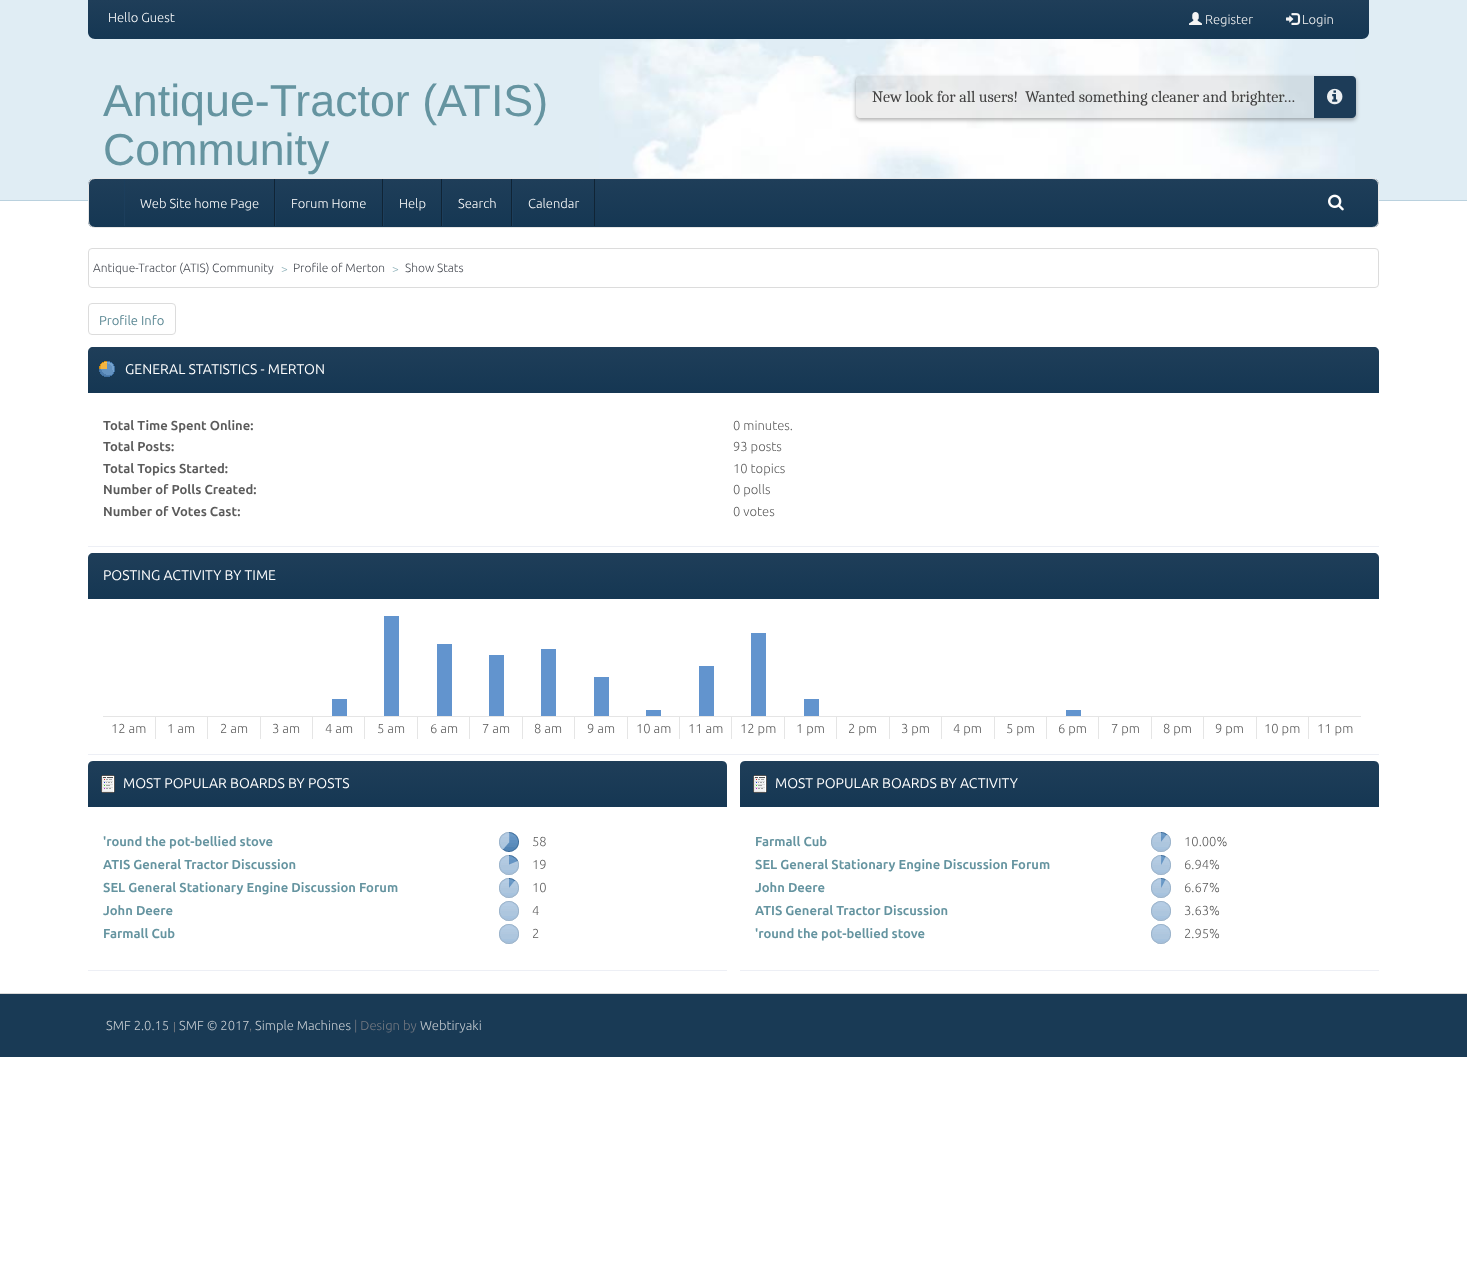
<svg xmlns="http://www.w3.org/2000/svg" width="1467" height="1273">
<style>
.a{font:300 13px Ubuntu;fill:#fff}
.b{font:300 13px Ubuntu;fill:#f5f5f5}
.c{font:44.75px Liberation Sans;fill:#6594a0}
.d{font:16px Caladea;fill:#424242}
.e{font:300 12px Ubuntu;fill:#42464e}
.f{font:300 12px Ubuntu;fill:#91b3bb}
.g{font:13px Ubuntu;fill:#5a8793}
.h{font:14px Ubuntu;fill:#fff}
.i{font:bold 13px Ubuntu;fill:#5b5b5b}
.j{font:300 13px Ubuntu;fill:#5b5b5b}
.k{font:bold 13px Ubuntu;fill:#6594a0}
.l{font:300 13px Ubuntu;fill:#c7cdd2}
.m{font:11px Liberation Sans;fill:#767a82}
.n{font:300 13px Ubuntu;fill:#767a82}
</style>
<defs>
<linearGradient id="g1" gradientUnits="userSpaceOnUse" x1="729" y1="0" x2="729" y2="39"><stop offset="0" stop-color="#1f3e59"/><stop offset="1" stop-color="#153753"/></linearGradient>
<clipPath id="clip1"><path d="M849 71h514v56h-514zm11 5h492c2 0 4 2 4 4v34c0 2-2 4-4 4h-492c-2 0-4-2-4-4v-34c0-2 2-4 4-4z" clip-rule="evenodd"/></clipPath>
<clipPath id="clip2"><rect x="88" y="178" width="1291" height="50" rx="7"/></clipPath>
<linearGradient id="g2" gradientUnits="userSpaceOnUse" x1="734" y1="179" x2="734" y2="227"><stop offset="0" stop-color="#1f3e59"/><stop offset="1" stop-color="#153753"/></linearGradient>
<linearGradient id="g3" gradientUnits="userSpaceOnUse" x1="734" y1="347" x2="734" y2="393"><stop offset="0" stop-color="#1f3e59"/><stop offset="1" stop-color="#153753"/></linearGradient>
<linearGradient id="g4" gradientUnits="userSpaceOnUse" x1="734" y1="553" x2="734" y2="599"><stop offset="0" stop-color="#1f3e59"/><stop offset="1" stop-color="#153753"/></linearGradient>
<linearGradient id="g5" gradientUnits="userSpaceOnUse" x1="408" y1="761" x2="408" y2="807"><stop offset="0" stop-color="#1f3e59"/><stop offset="1" stop-color="#153753"/></linearGradient>
<linearGradient id="g6" gradientUnits="userSpaceOnUse" x1="1060" y1="761" x2="1060" y2="807"><stop offset="0" stop-color="#1f3e59"/><stop offset="1" stop-color="#153753"/></linearGradient>
</defs>
<rect width="100%" height="100%" fill="#fff"/>
<path fill="#e0edf4" d="M0 0h1467v200H0z"/>
<path fill="url(#g1)" d="M88 0h1281v32c0 4-3 7-7 7h-1267c-4 0-7-3-7-7z"/>
<image href="1.png" x="1189" y="12" width="13" height="13"/>
<image href="2.png" x="1286" y="13" width="15" height="12"/>
<path fill="#bad1de" d="M0 200h1467v1H0z"/>
<image href="3.png" x="599" y="39" width="756" height="139"/>
<g clip-path="url(#clip1)">
<rect fill="#00000052" filter="blur(2px)" x="856" y="78" width="500" height="42" rx="4"/>
</g>
<rect fill="#00000012" x="856" y="76" width="500" height="42" rx="4"/>
<path fill="#1d3c58" d="M1314 76h38c2 0 4 2 4 4v34c0 2-2 4-4 4h-38z"/>
<image href="4.png" x="1327" y="88" width="16" height="17"/>
<g clip-path="url(#clip2)">
<path fill="url(#g2)" d="M88 179h1291v48H88z"/>
</g>
<rect fill="none" stroke="#e7e7e7" x="88.5" y="178.5" width="1290" height="49" rx="6.5"/>
<path fill="#102435" d="M274 179h1v47H274z"/>
<path fill="#1c3e5c" d="M124 179h1v47H124z"/>
<path fill="#102435" d="M382 179h1v47H382z"/>
<path fill="#1c3e5c" d="M275 179h1v47H275z"/>
<path fill="#102435" d="M441 179h1v47H441z"/>
<path fill="#1c3e5c" d="M383 179h1v47H383z"/>
<path fill="#102435" d="M511 179h1v47H511z"/>
<path fill="#1c3e5c" d="M442 179h1v47H442z"/>
<path fill="#102435" d="M594 179h1v47H594z"/>
<path fill="#1c3e5c" d="M512 179h1v47H512z"/>
<image href="5.png" x="1328" y="194" width="16" height="17"/>
<rect fill="none" stroke="#dcdcdc" x="88.5" y="248.5" width="1290" height="39" rx="3.5"/>
<rect fill="none" stroke="#dcdcdc" x="88.5" y="303.5" width="87" height="31" rx="3.5"/>
<path fill="url(#g3)" d="M93 347h1281c3 0 5 2 5 5v41h-1291v-41c0-3 2-5 5-5z"/>
<image href="6.png" x="99" y="361" width="16" height="16"/>
<path fill="#edeff5" d="M88 546h1291v1H88z"/>
<path fill="url(#g4)" d="M93 553h1281c3 0 5 2 5 5v41h-1291v-41c0-3 2-5 5-5z"/>
<path fill="#edeff5" d="M88 754h1291v1H88z"/>
<path fill="#e5e5e5" d="M103 716h1258v1H103z"/>
<path fill="#e5e5e5" d="M155 716h1v23H155z"/>
<path fill="#e5e5e5" d="M207 716h1v23H207z"/>
<path fill="#e5e5e5" d="M260 716h1v23H260z"/>
<path fill="#e5e5e5" d="M312 716h1v23H312z"/>
<path fill="#6294ce" d="M332 699h15v17H332z"/>
<path fill="#e5e5e5" d="M364 716h1v23H364z"/>
<path fill="#6294ce" d="M384 616h15v100H384z"/>
<path fill="#e5e5e5" d="M417 716h1v23H417z"/>
<path fill="#6294ce" d="M437 644h15v72H437z"/>
<path fill="#e5e5e5" d="M469 716h1v23H469z"/>
<path fill="#6294ce" d="M489 655h15v61H489z"/>
<path fill="#e5e5e5" d="M522 716h1v23H522z"/>
<path fill="#6294ce" d="M541 649h15v67H541z"/>
<path fill="#e5e5e5" d="M574 716h1v23H574z"/>
<path fill="#6294ce" d="M594 677h15v39H594z"/>
<path fill="#e5e5e5" d="M627 716h1v23H627z"/>
<path fill="#6294ce" d="M646 710h15v6H646z"/>
<path fill="#e5e5e5" d="M679 716h1v23H679z"/>
<path fill="#6294ce" d="M699 666h15v50H699z"/>
<path fill="#e5e5e5" d="M731 716h1v23H731z"/>
<path fill="#6294ce" d="M751 633h15v83H751z"/>
<path fill="#e5e5e5" d="M784 716h1v23H784z"/>
<path fill="#6294ce" d="M804 699h15v17H804z"/>
<path fill="#e5e5e5" d="M836 716h1v23H836z"/>
<path fill="#e5e5e5" d="M889 716h1v23H889z"/>
<path fill="#e5e5e5" d="M941 716h1v23H941z"/>
<path fill="#e5e5e5" d="M994 716h1v23H994z"/>
<path fill="#e5e5e5" d="M1046 716h1v23H1046z"/>
<path fill="#6294ce" d="M1066 710h15v6H1066z"/>
<path fill="#e5e5e5" d="M1098 716h1v23H1098z"/>
<path fill="#e5e5e5" d="M1151 716h1v23H1151z"/>
<path fill="#e5e5e5" d="M1203 716h1v23H1203z"/>
<path fill="#e5e5e5" d="M1256 716h1v23H1256z"/>
<path fill="#e5e5e5" d="M1308 716h1v23H1308z"/>
<path fill="url(#g5)" d="M93 761h629c3 0 5 2 5 5v41h-639v-41c0-3 2-5 5-5z"/>
<image href="7.png" x="101" y="775" width="14" height="18"/>
<path fill="#edeff5" d="M88 970h639v1H88z"/>
<image href="8.png" x="499" y="832" width="20" height="20"/>
<image href="9.png" x="499" y="855" width="20" height="20"/>
<image href="10.png" x="499" y="878" width="20" height="20"/>
<image href="11.png" x="499" y="901" width="20" height="20"/>
<image href="11.png" x="499" y="924" width="20" height="20"/>
<path fill="url(#g6)" d="M745 761h629c3 0 5 2 5 5v41h-639v-41c0-3 2-5 5-5z"/>
<image href="7.png" x="753" y="775" width="14" height="18"/>
<path fill="#edeff5" d="M740 970h639v1H740z"/>
<image href="10.png" x="1151" y="832" width="20" height="20"/>
<image href="12.png" x="1151" y="855" width="20" height="20"/>
<image href="12.png" x="1151" y="878" width="20" height="20"/>
<image href="11.png" x="1151" y="901" width="20" height="20"/>
<image href="11.png" x="1151" y="924" width="20" height="20"/>
<path fill="#193a55" d="M0 994h1467v63H0z"/>
<path fill="#d9d9d9" d="M0 993h1467v1H0z"/>
<text class="a" x="108" y="22">Hello Guest</text>
<text class="b" x="1205" y="24">Register</text>
<text class="b" x="1302" y="24">Login</text>
<text class="c" x="103" y="116">Antique-Tractor (ATIS)</text>
<text class="c" x="103" y="165">Community</text>
<text class="d" xml:space="preserve" x="872" y="102">New look for all users!  Wanted something cleaner and brighter…</text>
<text class="a" x="140" y="208">Web Site home Page</text>
<text class="a" x="291" y="208">Forum Home</text>
<text class="a" x="399" y="208">Help</text>
<text class="a" x="458" y="208">Search</text>
<text class="a" x="528" y="208">Calendar</text>
<text class="e" x="93" y="272">Antique-Tractor (ATIS) Community</text>
<text class="f" x="281" y="273">&gt;</text>
<text class="e" x="293" y="272">Profile of Merton</text>
<text class="f" x="392" y="273">&gt;</text>
<text class="e" x="405" y="272">Show Stats</text>
<text class="g" x="99" y="325">Profile Info</text>
<text class="h" x="125" y="374">GENERAL STATISTICS - MERTON</text>
<text class="i" x="103" y="430">Total Time Spent Online:</text>
<text class="j" x="733" y="430">0 minutes.</text>
<text class="i" x="103" y="451">Total Posts:</text>
<text class="j" x="733" y="451">93 posts</text>
<text class="i" x="103" y="473">Total Topics Started:</text>
<text class="j" x="733" y="473">10 topics</text>
<text class="i" x="103" y="494">Number of Polls Created:</text>
<text class="j" x="733" y="494">0 polls</text>
<text class="i" x="103" y="516">Number of Votes Cast:</text>
<text class="j" x="733" y="516">0 votes</text>
<text class="h" x="103" y="580">POSTING ACTIVITY BY TIME</text>
<text class="j" x="111" y="733">12 am</text>
<text class="j" x="167" y="733">1 am</text>
<text class="j" x="220" y="733">2 am</text>
<text class="j" x="272" y="733">3 am</text>
<text class="j" x="325" y="733">4 am</text>
<text class="j" x="377" y="733">5 am</text>
<text class="j" x="430" y="733">6 am</text>
<text class="j" x="482" y="733">7 am</text>
<text class="j" x="534" y="733">8 am</text>
<text class="j" x="587" y="733">9 am</text>
<text class="j" x="636" y="733">10 am</text>
<text class="j" x="688" y="733">11 am</text>
<text class="j" x="740" y="733">12 pm</text>
<text class="j" x="796" y="733">1 pm</text>
<text class="j" x="848" y="733">2 pm</text>
<text class="j" x="901" y="733">3 pm</text>
<text class="j" x="953" y="733">4 pm</text>
<text class="j" x="1006" y="733">5 pm</text>
<text class="j" x="1058" y="733">6 pm</text>
<text class="j" x="1111" y="733">7 pm</text>
<text class="j" x="1163" y="733">8 pm</text>
<text class="j" x="1215" y="733">9 pm</text>
<text class="j" x="1264" y="733">10 pm</text>
<text class="j" x="1317" y="733">11 pm</text>
<text class="h" x="123" y="788">MOST POPULAR BOARDS BY POSTS</text>
<text class="k" x="103" y="846">'round the pot-bellied stove</text>
<text class="j" x="532" y="846">58</text>
<text class="k" x="103" y="869">ATIS General Tractor Discussion</text>
<text class="j" x="532" y="869">19</text>
<text class="k" x="103" y="892">SEL General Stationary Engine Discussion Forum</text>
<text class="j" x="532" y="892">10</text>
<text class="k" x="103" y="915">John Deere</text>
<text class="j" x="532" y="915">4</text>
<text class="k" x="103" y="938">Farmall Cub</text>
<text class="j" x="532" y="938">2</text>
<text class="h" x="775" y="788">MOST POPULAR BOARDS BY ACTIVITY</text>
<text class="k" x="755" y="846">Farmall Cub</text>
<text class="j" x="1184" y="846">10.00%</text>
<text class="k" x="755" y="869">SEL General Stationary Engine Discussion Forum</text>
<text class="j" x="1184" y="869">6.94%</text>
<text class="k" x="755" y="892">John Deere</text>
<text class="j" x="1184" y="892">6.67%</text>
<text class="k" x="755" y="915">ATIS General Tractor Discussion</text>
<text class="j" x="1184" y="915">3.63%</text>
<text class="k" x="755" y="938">'round the pot-bellied stove</text>
<text class="j" x="1184" y="938">2.95%</text>
<text class="l" x="106" y="1030">SMF 2.0.15</text>
<text class="m" x="173" y="1030">|</text>
<text class="l" x="179" y="1030">SMF © 2017</text>
<text class="m" x="249" y="1030">,</text>
<text class="l" x="255" y="1030">Simple Machines</text>
<text class="n" x="354" y="1030">| Design by</text>
<text class="l" x="420" y="1030">Webtiryaki</text>
</svg>
